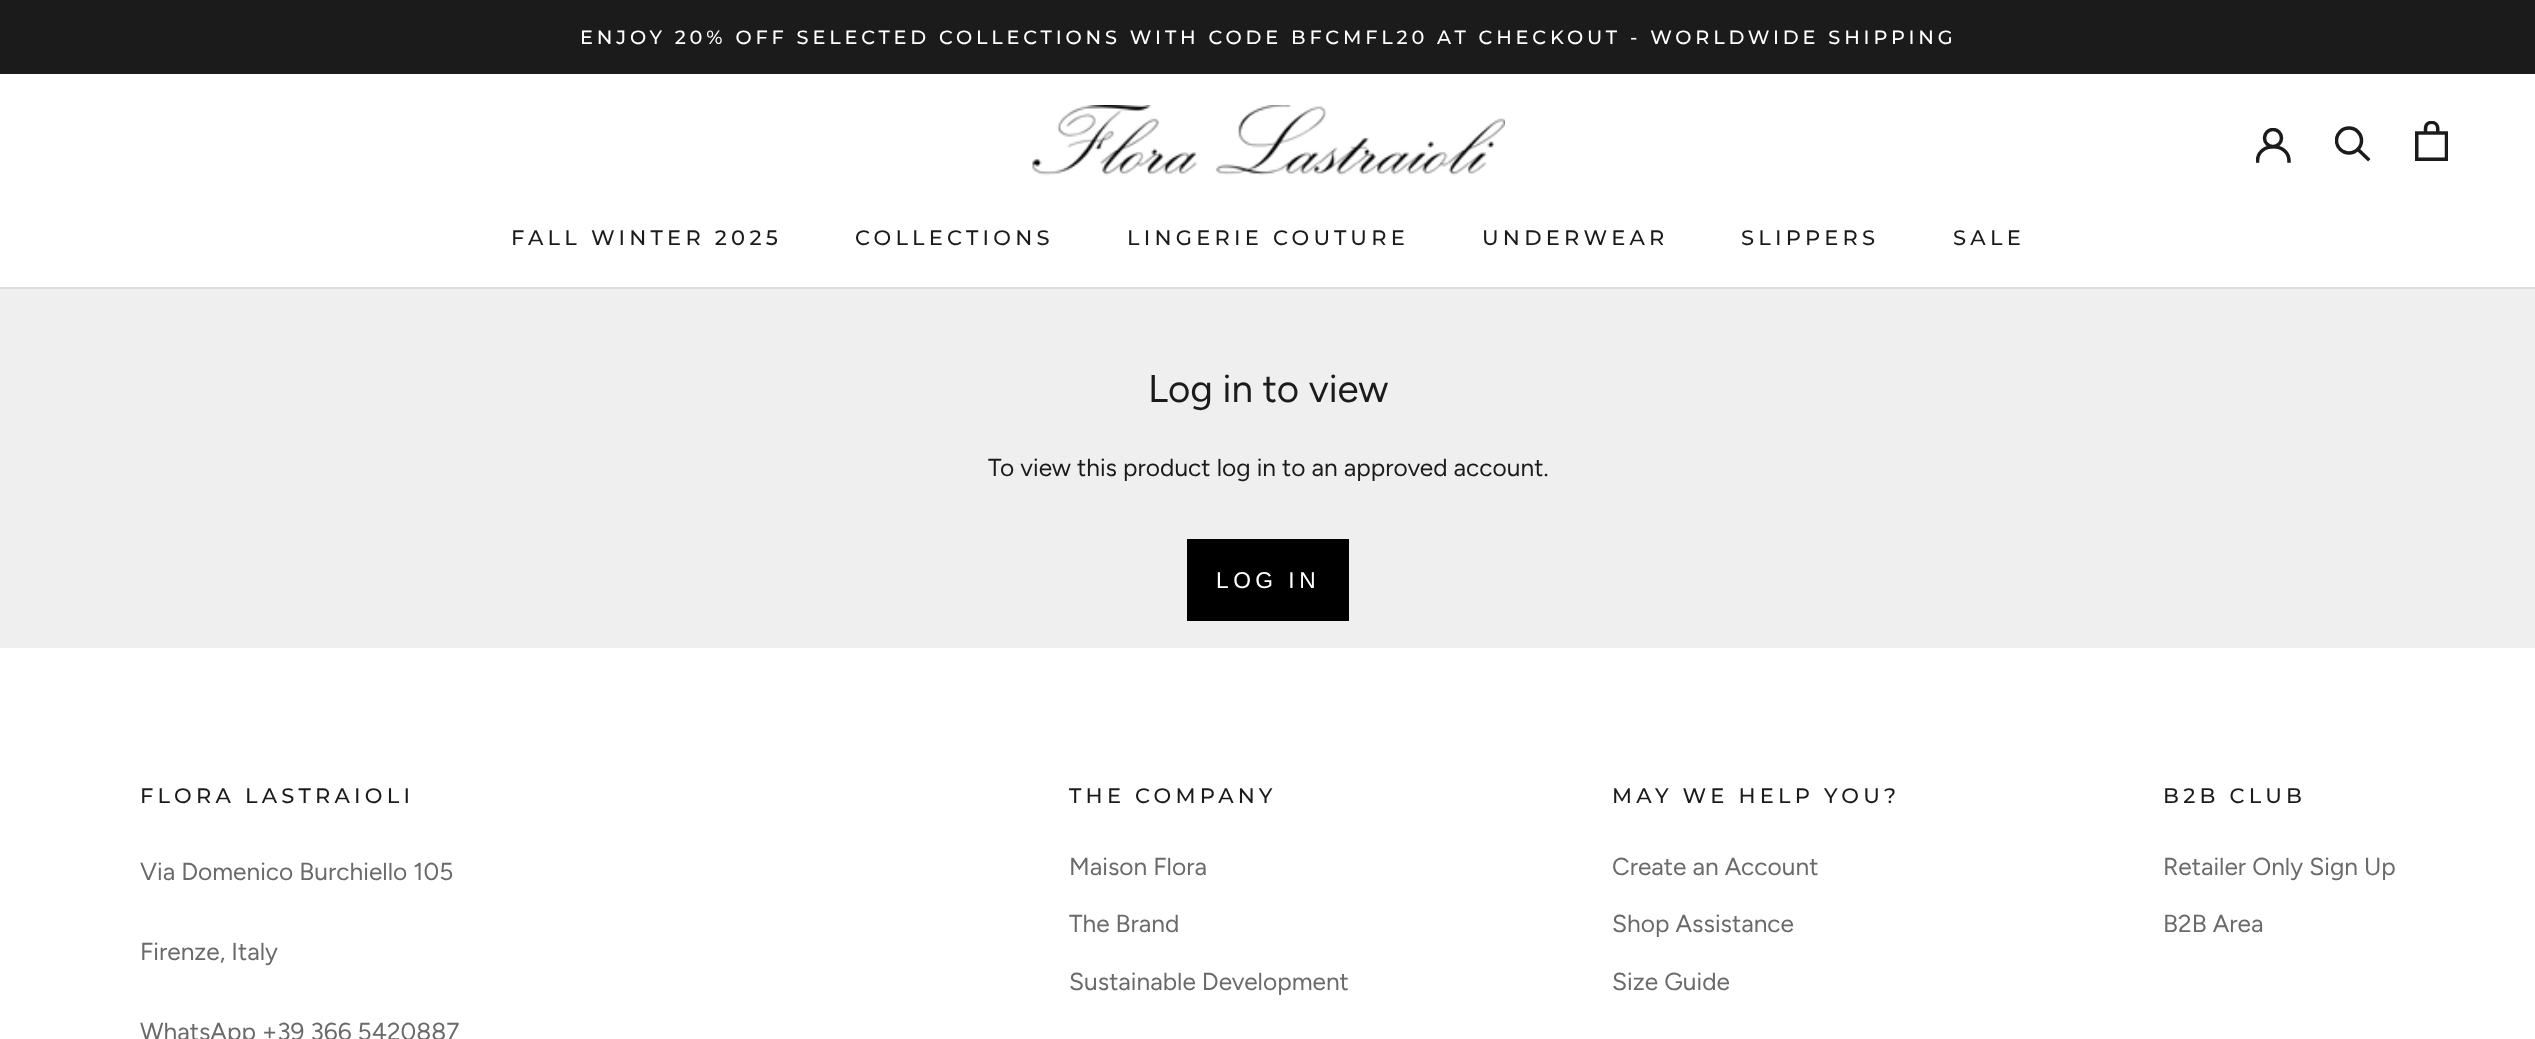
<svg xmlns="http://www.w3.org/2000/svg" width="2535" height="1039">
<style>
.a{font:500 19.25px Montserrat;letter-spacing:3.85px;fill:#fff}
.b{font:500 21px Montserrat;letter-spacing:4.25px;fill:#1c1b1b}
.c{font:38.5px Figtree;fill:#1c1b1b}
.d{font:24.5px Figtree;fill:#1c1b1b}
.e{font:22.75px Liberation Sans;letter-spacing:4.5px;fill:#fff}
.f{font:24.5px Figtree;fill:#6a6a6a}
</style>
<defs>
<clipPath id="clip1"><path d="M2256 128h35v35H2256z"/></clipPath>
<clipPath id="clip2"><path d="M2335 126h36v37H2335z"/></clipPath>
</defs>
<rect width="100%" height="100%" fill="#efefef"/>
<path fill="#1c1b1b" d="M0 0h2535v74H0z"/>
<path fill="#fff" d="M0 74h2535v213H0z"/>
<path fill="#ddd" d="M0 287h2535v2H0z"/>
<image href="1.png" x="1032" y="105" width="473" height="71"/>
<g clip-path="url(#clip1)">
<path fill="none" stroke="#1c1b1b" stroke-width="3.5" stroke-linecap="square" d="M2257.5 161c0-19 31.5-19 31.5 0"/>
<circle fill="none" stroke="#1c1b1b" stroke-width="3.5" cx="2273" cy="138" r="8.5"/>
</g>
<path fill="none" stroke="#1c1b1b" stroke-width="3.5" stroke-linecap="square" d="M2368 159l-10-9.5"/>
<g clip-path="url(#clip2)">
<circle fill="none" stroke="#1c1b1b" stroke-width="3.5" cx="2349" cy="140.5" r="12.5"/>
</g>
<image href="2.png" x="2415" y="121" width="33" height="40"/>
<path fill="#000" d="M1187 539h162v82H1187z"/>
<path fill="#fff" d="M0 648h2535v391H0z"/>
<text class="a" x="580" y="44">ENJOY 20% OFF SELECTED COLLECTIONS WITH CODE BFCMFL20 AT CHECKOUT - WORLDWIDE SHIPPING</text>
<text class="b" x="511" y="245">FALL WINTER 2025</text>
<text class="b" x="855" y="245">COLLECTIONS</text>
<text class="b" x="1127" y="245">LINGERIE COUTURE</text>
<text class="b" x="1482" y="245">UNDERWEAR</text>
<text class="b" x="1741" y="245">SLIPPERS</text>
<text class="b" x="1953" y="245">SALE</text>
<text class="c" x="1148" y="402">Log in to view</text>
<text class="d" x="988" y="476">To view this product log in to an approved account.</text>
<text class="e" x="1216" y="588">LOG IN</text>
<text class="b" x="140" y="803">FLORA LASTRAIOLI</text>
<text class="f" x="140" y="880">Via Domenico Burchiello 105</text>
<text class="f" x="140" y="960">Firenze, Italy</text>
<text class="f" x="140" y="1040">WhatsApp +39 366 5420887</text>
<text class="b" x="1069" y="803">THE COMPANY</text>
<text class="f" x="1069" y="875">Maison Flora</text>
<text class="f" x="1069" y="932">The Brand</text>
<text class="f" x="1069" y="990">Sustainable Development</text>
<text class="b" x="1612" y="803">MAY WE HELP YOU?</text>
<text class="f" x="1612" y="875">Create an Account</text>
<text class="f" x="1612" y="932">Shop Assistance</text>
<text class="f" x="1612" y="990">Size Guide</text>
<text class="b" x="2163" y="803">B2B CLUB</text>
<text class="f" x="2163" y="875">Retailer Only Sign Up</text>
<text class="f" x="2163" y="932">B2B Area</text>
</svg>
